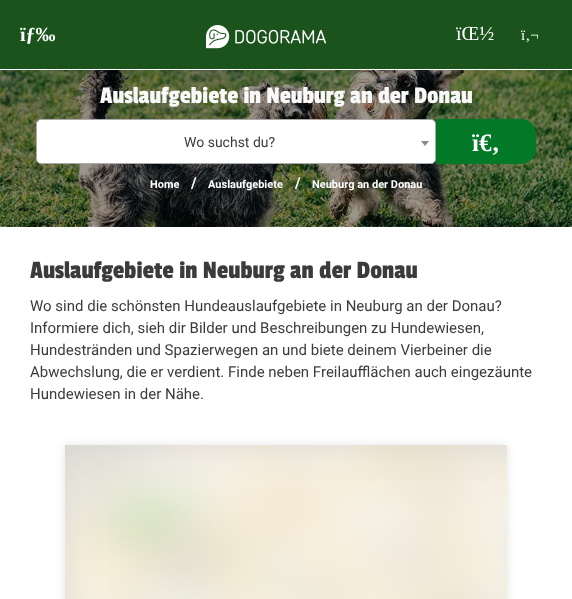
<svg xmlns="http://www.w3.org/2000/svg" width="572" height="599">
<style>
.a{font:bold 20px Liberation Serif;fill:#fff}
.b{font:20px Liberation Serif;fill:#fff}
.c{font:15px Liberation Serif;fill:#fff}
.d{font:25px Passion One;fill:#f9f9f9}
.e{font:14px Roboto;fill:#3b3b3b}
.f{font:bold 25px Liberation Serif;fill:#fff}
.g{font:bold 11px Roboto;fill:#fff}
.h{font:bold 15px Roboto;fill:#fff}
.i{font:26px Passion One;fill:#3b3b3b}
.j{font:15px Roboto;fill:#3b3b3b}
</style>
<rect width="100%" height="100%" fill="#fff"/>
<path fill="#1a531b" d="M0 0h572v69H0z"/>
<image href="1.png" x="206" y="25" width="120" height="24"/>
<image href="2.png" x="0" y="70" width="572" height="157"/>
<rect fill="#fff" stroke="#aaa" x="36.5" y="119.5" width="399" height="44" rx="4.5"/>
<path fill="#888" d="M421 141h8l-4 5z"/>
<path fill="#017926" d="M436 119h85c8.5 0 15 6.5 15 15v15c0 8.5-6.5 15-15 15h-85z"/>
<path fill="#0000001a" filter="blur(5px)" d="M65 445h442v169H65z"/>
<image href="3.png" x="65" y="445" width="442" height="154"/>
<text class="a" x="20" y="41">ïƒ‰</text>
<text class="b" x="456" y="40">ïŒ½</text>
<text class="c" x="521" y="40">ï‚¬</text>
<text class="d" x="100" y="103">Auslaufgebiete in Neuburg an der Donau</text>
<text class="e" x="184" y="147">Wo suchst du?</text>
<text class="f" x="472" y="151">ï€‚</text>
<text class="g" x="150" y="188">Home</text>
<text class="h" x="191" y="188">/</text>
<text class="g" x="208" y="188">Auslaufgebiete</text>
<text class="h" x="295" y="188">/</text>
<text class="g" x="312" y="188">Neuburg an der Donau</text>
<text class="i" x="30" y="278">Auslaufgebiete in Neuburg an der Donau</text>
<text class="j" x="30" y="311">Wo sind die schönsten Hundeauslaufgebiete in Neuburg an der Donau?</text>
<text class="j" x="30" y="333">Informiere dich, sieh dir Bilder und Beschreibungen zu Hundewiesen,</text>
<text class="j" x="30" y="355">Hundestränden und Spazierwegen an und biete deinem Vierbeiner die</text>
<text class="j" x="30" y="377">Abwechslung, die er verdient. Finde neben Freilaufflächen auch eingezäunte</text>
<text class="j" x="30" y="399">Hundewiesen in der Nähe.</text>
</svg>
